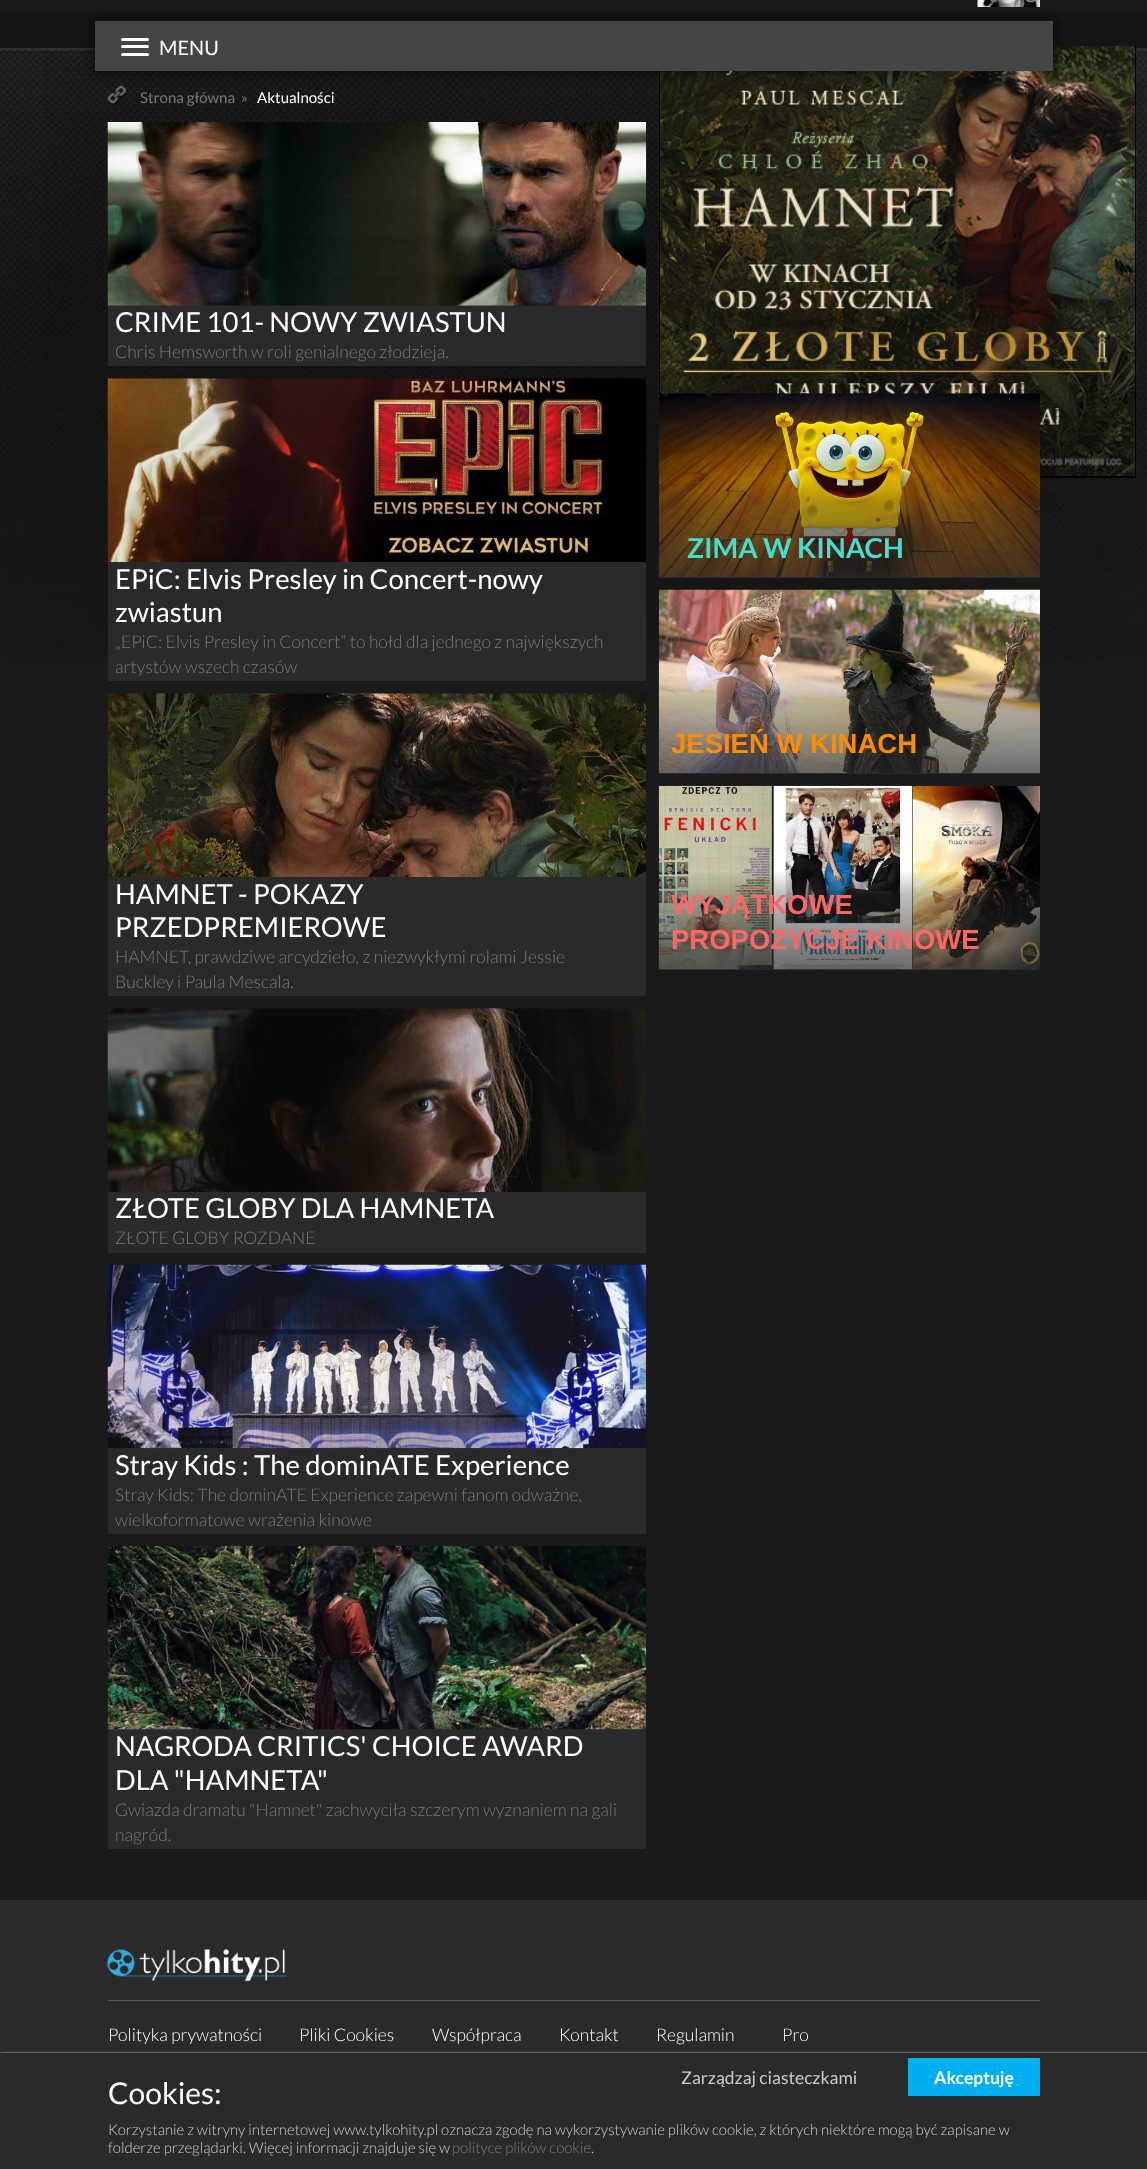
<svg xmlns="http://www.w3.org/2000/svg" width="1147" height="2169">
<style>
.a{font:20px Lato;fill:#fff}
.b{font:15px Lato;fill:#77797b}
.c{font:15px Lato;fill:#fff}
.d{font:27.5px Lato;fill:#fff}
.e{font:300 17.5px Lato;fill:#77797b}
.f{font:bold 27.5px Lato;fill:#40e0d0}
.g{font:bold 27.5px Liberation Sans;fill:#ff8c00}
.h{font:bold 27.5px Liberation Sans;fill:#f66}
.i{font:300 17.5px Lato;fill:#fff}
.j{font:17.5px Lato;fill:#ccc}
.k{font:bold 17.5px Lato;fill:#fff}
.l{font:300 15px Lato;fill:#ccc}
.m{font:300 15px Lato;fill:#77797b}
.n{font:30px Lato;fill:#fff}
</style>
<defs>
<linearGradient id="g1" gradientUnits="userSpaceOnUse" x1="574" y1="46" x2="574" y2="-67"><stop offset="0" stop-color="#151515"/><stop offset="0.2" stop-color="#151515"/><stop offset="1" stop-color="#292929"/></linearGradient>
<linearGradient id="g2" gradientUnits="userSpaceOnUse" x1="849" y1="774" x2="849" y2="674"><stop offset="0" stop-color="#2a2a2a" stop-opacity="0.7"/><stop offset="0.75" stop-color="#2a2a2a" stop-opacity="0.3"/><stop offset="1" stop-color="#2a2a2a" stop-opacity="0"/></linearGradient>
<linearGradient id="g3" gradientUnits="userSpaceOnUse" x1="849" y1="970" x2="849" y2="870"><stop offset="0" stop-color="#2a2a2a" stop-opacity="0.7"/><stop offset="0.75" stop-color="#2a2a2a" stop-opacity="0.3"/><stop offset="1" stop-color="#2a2a2a" stop-opacity="0"/></linearGradient>
</defs>
<rect width="100%" height="100%" fill="#1a1a1a"/>
<image href="1.png" x="0" y="46" width="1147" height="616"/>
<path fill="url(#g1)" d="M0 12h1147v34H0z"/>
<image href="2.png" x="977" y="0" width="63" height="7"/>
<image href="10.png" x="658" y="46" width="479" height="431"/>
<image href="11.png" x="693" y="71" width="260" height="157"/>
<path fill="#000" d="M659 71h1v323H659z"/>
<path fill="#00000066" filter="blur(6px)" d="M91 18h965v57H91z"/>
<path fill="#434546" d="M95 21h958v50H95z"/>
<rect fill="#fff" x="121" y="38" width="28" height="3" rx="1.5"/>
<rect fill="#fff" x="121" y="45" width="28" height="3" rx="1.5"/>
<rect fill="#fff" x="121" y="53" width="28" height="3" rx="1.5"/>
<image href="3.png" x="107" y="85" width="21" height="20"/>
<path fill="#2a2a2a" d="M108 305h538v61H108z"/>
<image href="4.png" x="107" y="122" width="540" height="184"/>
<path fill="#2a2a2a" d="M108 562h538v119H108z"/>
<image href="5.png" x="107" y="378" width="539" height="184"/>
<path fill="#2a2a2a" d="M108 877h538v119H108z"/>
<image href="6.png" x="107" y="693" width="540" height="184"/>
<path fill="#2a2a2a" d="M108 1192h538v61H108z"/>
<image href="7.png" x="107" y="1008" width="539" height="184"/>
<path fill="#2a2a2a" d="M108 1448h538v86H108z"/>
<image href="8.png" x="107" y="1264" width="540" height="185"/>
<path fill="#2a2a2a" d="M108 1729h538v120H108z"/>
<image href="9.png" x="107" y="1545" width="540" height="185"/>
<path fill="#000" d="M1040 477h95v1H1040z"/>
<image href="12.png" x="660" y="243" width="475" height="233"/>
<path fill="#000" d="M1135 46h1v432H1135z"/>
<path fill="#000" d="M1040 476h96v1H1040z"/>
<path fill="#2a2a2a" d="M659 577h381v1H659z"/>
<image href="13.png" x="658" y="393" width="382" height="184"/>
<path fill="#2a2a2a" d="M659 773h381v1H659z"/>
<image href="14.png" x="658" y="589" width="382" height="185"/>
<path fill="url(#g2)" d="M659 676h381v98H659z"/>
<path fill="#2a2a2a" d="M659 969h381v1H659z"/>
<image href="15.png" x="658" y="785" width="382" height="185"/>
<path fill="url(#g3)" d="M659 872h381v98H659z"/>
<path fill="#2a2a2a" d="M0 1900h1147v153H0z"/>
<image href="16.png" x="107" y="1949" width="180" height="32"/>
<path fill="#555" d="M108 2000h932v1H108z"/>
<path fill="#ccc" filter="blur(1px)" d="M0 2053h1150v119H0z"/>
<path fill="#2a2a2a" d="M0 2053h1147v116H0z"/>
<path fill="#00aff0" d="M908 2058h132v38H908z"/>
<text class="a" x="159" y="55">MENU</text>
<text class="b" x="140" y="103">Strona główna</text>
<text class="b" x="241" y="103">»</text>
<text class="c" x="257" y="103">Aktualności</text>
<text class="d" x="115" y="332">CRIME 101- NOWY ZWIASTUN</text>
<text class="e" x="115" y="358">Chris Hemsworth w roli genialnego złodzieja.</text>
<text class="d" x="115" y="589">EPiC: Elvis Presley in Concert-nowy</text>
<text class="d" x="115" y="622">zwiastun</text>
<text class="e" x="115" y="648">„EPiC: Elvis Presley in Concert” to hołd dla jednego z największych</text>
<text class="e" x="115" y="673">artystów wszech czasów</text>
<text class="d" x="115" y="904">HAMNET - POKAZY</text>
<text class="d" x="115" y="937">PRZEDPREMIEROWE</text>
<text class="e" x="115" y="963">HAMNET, prawdziwe arcydzieło, z niezwykłymi rolami Jessie</text>
<text class="e" x="115" y="988">Buckley i Paula Mescala.</text>
<text class="d" x="115" y="1218">ZŁOTE GLOBY DLA HAMNETA</text>
<text class="e" x="115" y="1244">ZŁOTE GLOBY ROZDANE</text>
<text class="d" x="115" y="1475">Stray Kids : The dominATE Experience</text>
<text class="e" x="115" y="1501">Stray Kids: The dominATE Experience zapewni fanom odważne,</text>
<text class="e" x="115" y="1526">wielkoformatowe wrażenia kinowe</text>
<text class="d" x="115" y="1756">NAGRODA CRITICS' CHOICE AWARD</text>
<text class="d" x="115" y="1790">DLA "HAMNETA"</text>
<text class="e" x="115" y="1816">Gwiazda dramatu "Hamnet" zachwyciła szczerym wyznaniem na gali</text>
<text class="e" x="115" y="1841">nagród.</text>
<text class="f" x="687" y="558">ZIMA W KINACH</text>
<text class="g" x="671" y="753">JESIEŃ W KINACH</text>
<text class="h" x="671" y="914">WYJĄTKOWE</text>
<text class="h" x="671" y="949">PROPOZYCJE KINOWE</text>
<text class="i" x="108" y="2041">Polityka prywatności</text>
<text class="i" x="299" y="2041">Pliki Cookies</text>
<text class="i" x="432" y="2041">Współpraca</text>
<text class="i" x="559" y="2041">Kontakt</text>
<text class="i" x="656" y="2041">Regulamin</text>
<text class="i" x="782" y="2041">Pro</text>
<text class="j" x="681" y="2084">Zarządzaj ciasteczkami</text>
<text class="k" x="934" y="2084">Akceptuję</text>
<text class="l" x="108" y="2135">Korzystanie z witryny internetowej www.tylkohity.pl oznacza zgodę na wykorzystywanie plików cookie, z których niektóre mogą być zapisane w</text>
<text class="l" x="108" y="2153">folderze przeglądarki. Więcej informacji znajduje się w</text>
<text class="m" x="452" y="2153">polityce plików cookie</text>
<text class="l" x="591" y="2153">.</text>
<text class="n" x="108" y="2104">Cookies:</text>
</svg>
